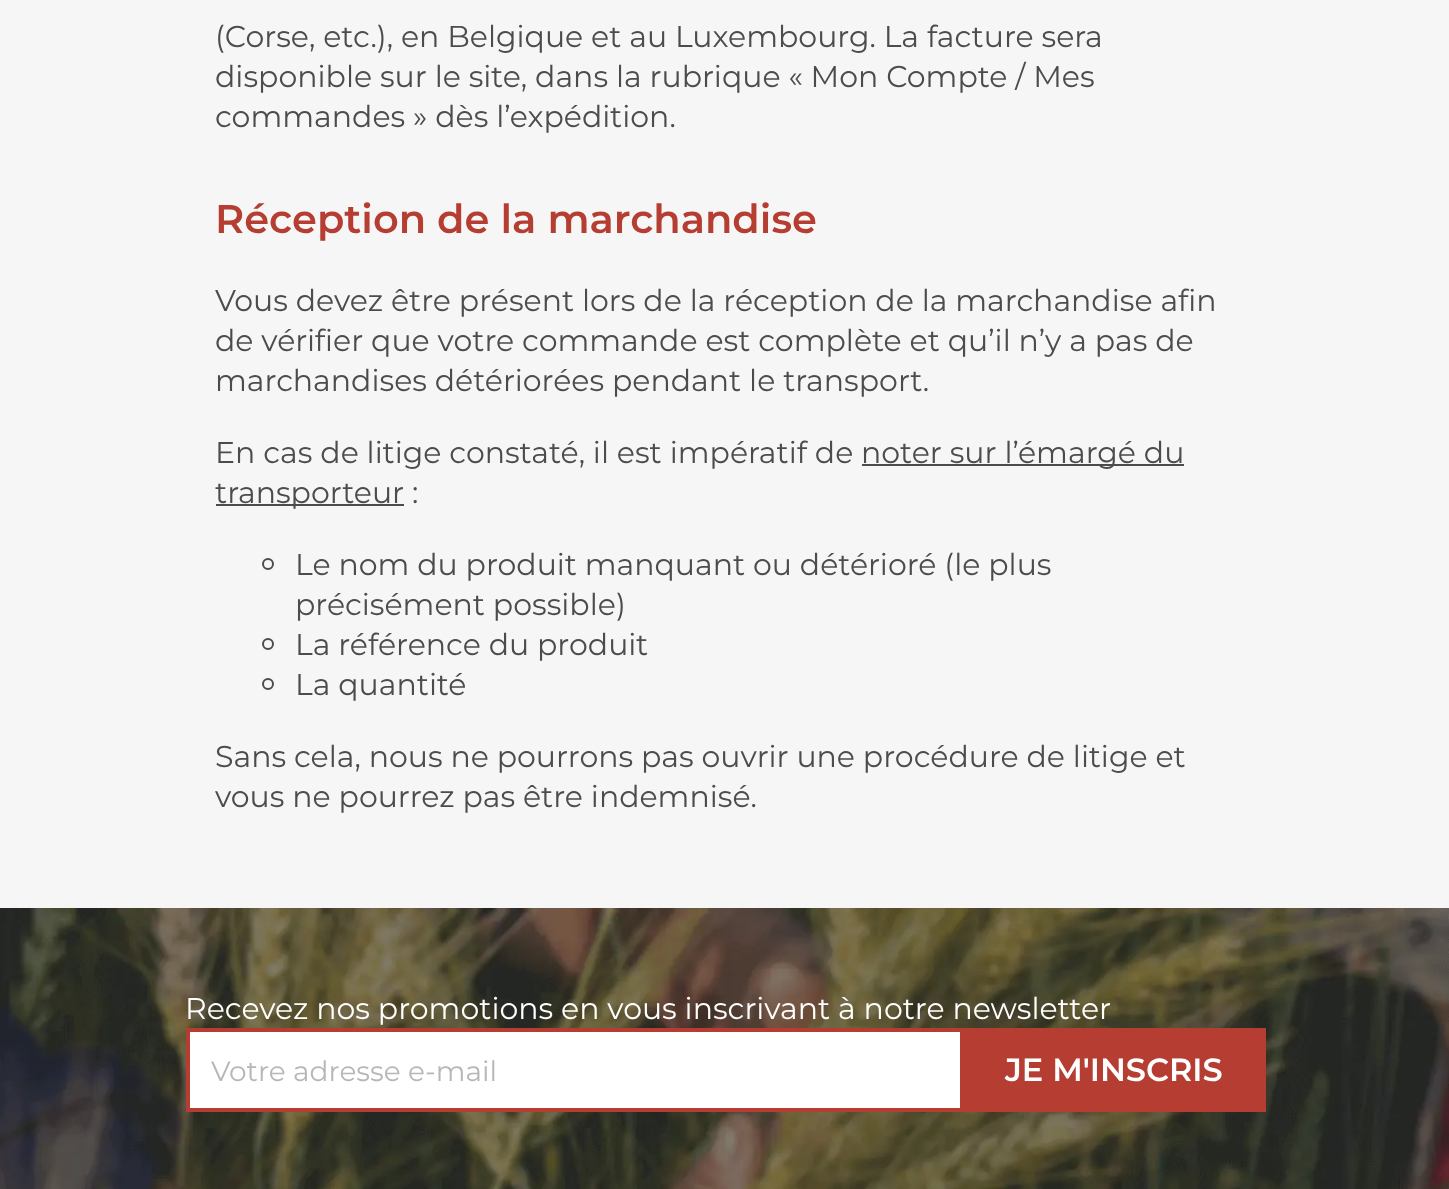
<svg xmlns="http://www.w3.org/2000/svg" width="1449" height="1189">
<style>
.a{font:30px Montserrat;fill:#4c4c4c}
.b{font:600 40px Montserrat;fill:#b53d31}
.c{font:30px Montserrat;fill:#fff}
.d{font:28px Montserrat;fill:#b7b7b7}
.e{font:600 32px Montserrat;fill:#fff}
</style>
<rect width="100%" height="100%" fill="#f6f6f6"/>
<path fill="#4c4c4c" d="M862 464h322v2H862z"/>
<path fill="#4c4c4c" d="M216 504h188v2H216z"/>
<circle fill="none" stroke="#4c4c4c" stroke-width="2" cx="268" cy="564" r="5"/>
<circle fill="none" stroke="#4c4c4c" stroke-width="2" cx="268" cy="644" r="5"/>
<circle fill="none" stroke="#4c4c4c" stroke-width="2" cx="268" cy="684" r="5"/>
<image href="1.png" x="0" y="908" width="1449" height="281"/>
<path fill="#fff" stroke="#b53d32" stroke-width="4" d="M188 1030h774v80H188z"/>
<path fill="#b53d32" d="M964 1028h302v84H964z"/>
<text class="a" x="215" y="47">(Corse, etc.), en Belgique et au Luxembourg. La facture sera</text>
<text class="a" x="215" y="87">disponible sur le site, dans la rubrique « Mon Compte / Mes</text>
<text class="a" x="215" y="127">commandes » dès l’expédition.</text>
<text class="b" x="215" y="233">Réception de la marchandise</text>
<text class="a" x="215" y="311">Vous devez être présent lors de la réception de la marchandise afin</text>
<text class="a" x="215" y="351">de vérifier que votre commande est complète et qu’il n’y a pas de</text>
<text class="a" x="215" y="391">marchandises détériorées pendant le transport.</text>
<text class="a" x="215" y="463">En cas de litige constaté, il est impératif de</text>
<text class="a" x="861" y="463">noter sur l’émargé du</text>
<text class="a" x="215" y="503">transporteur :</text>
<text class="a" x="295" y="575">Le nom du produit manquant ou détérioré (le plus</text>
<text class="a" x="295" y="615">précisément possible)</text>
<text class="a" x="295" y="655">La référence du produit</text>
<text class="a" x="295" y="695">La quantité</text>
<text class="a" x="215" y="767">Sans cela, nous ne pourrons pas ouvrir une procédure de litige et</text>
<text class="a" x="215" y="807">vous ne pourrez pas être indemnisé.</text>
<text class="c" x="185" y="1019">Recevez nos promotions en vous inscrivant à notre newsletter</text>
<text class="d" x="211" y="1081">Votre adresse e-mail</text>
<text class="e" x="1005" y="1081">JE M'INSCRIS</text>
</svg>
